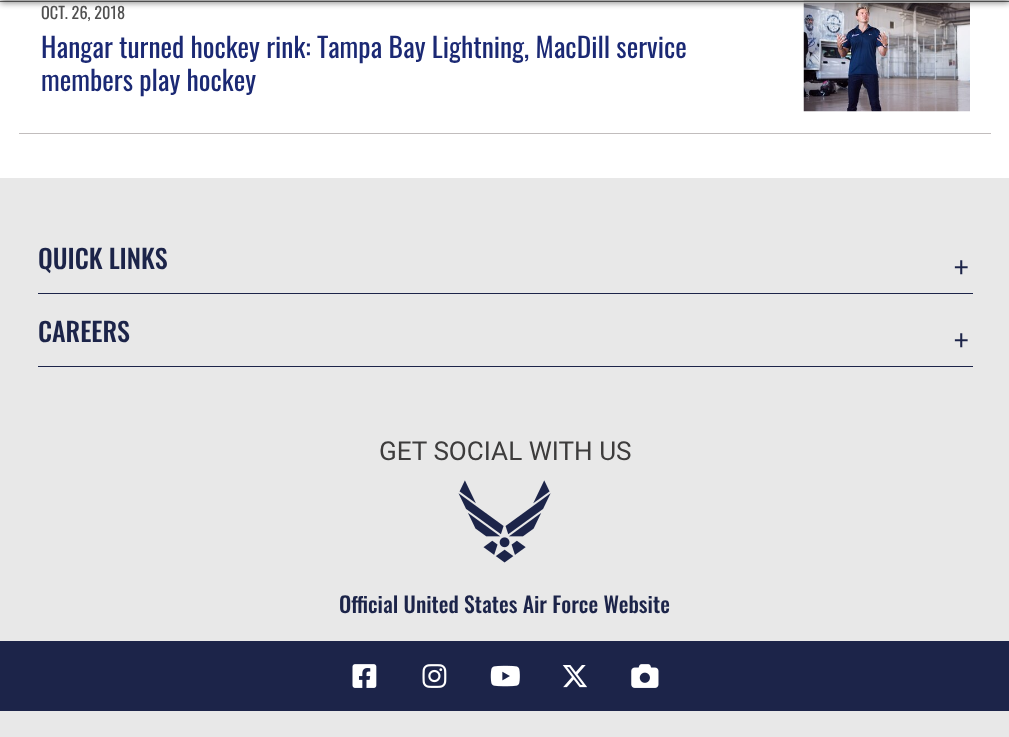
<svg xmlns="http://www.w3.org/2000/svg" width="1009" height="737">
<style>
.a{font:16.25px Oswald;fill:#505050}
.b{font:27.5px Oswald;fill:#1b2974}
.c{font:500 26.1px Oswald;fill:#1c2449}
.d{font:300 38px Oswald;fill:#1c2449}
.e{font:26.1px Roboto;fill:#3d3c3c}
.f{font:500 21.75px Oswald;fill:#1c2449}
</style>
<rect width="100%" height="100%" fill="#fff"/>
<image href="1.png" x="803" y="0" width="167" height="112"/>
<path fill="#ffffffbf" d="M803 0h167v3H803z"/>
<path fill="#707070" d="M0 1h1009v1H0z"/>
<path fill="#00000073" filter="blur(3px)" d="M0 -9h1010v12H0z"/>
<path fill="#c1bdbd" d="M19 133h972v1H19z"/>
<path fill="#e8e8e8" d="M0 178h1009v559H0z"/>
<path fill="#1c2449" d="M38 293h935v1H38z"/>
<path fill="#1c2449" d="M38 366h935v1H38z"/>
<image href="2.png" x="458" y="480" width="93" height="83"/>
<path fill="#1c2449" d="M0 641h1009v70H0z"/>
<image href="3.png" x="352" y="664" width="25" height="24"/>
<image href="4.png" x="422" y="664" width="25" height="24"/>
<image href="5.png" x="490" y="665" width="30" height="22"/>
<image href="6.png" x="562" y="665" width="25" height="23"/>
<image href="7.png" x="631" y="664" width="28" height="24"/>
<text class="a" x="41" y="19">OCT. 26, 2018</text>
<text class="b" x="41" y="58">Hangar turned hockey rink: Tampa Bay Lightning, MacDill service</text>
<text class="b" x="41" y="91">members play hockey</text>
<text class="c" x="38" y="269">QUICK LINKS</text>
<text class="d" x="954" y="283">+</text>
<text class="c" x="38" y="342">CAREERS</text>
<text class="d" x="954" y="356">+</text>
<text class="e" x="379" y="460">GET SOCIAL WITH US</text>
<text class="f" x="339" y="613">Official United States Air Force Website</text>
</svg>
